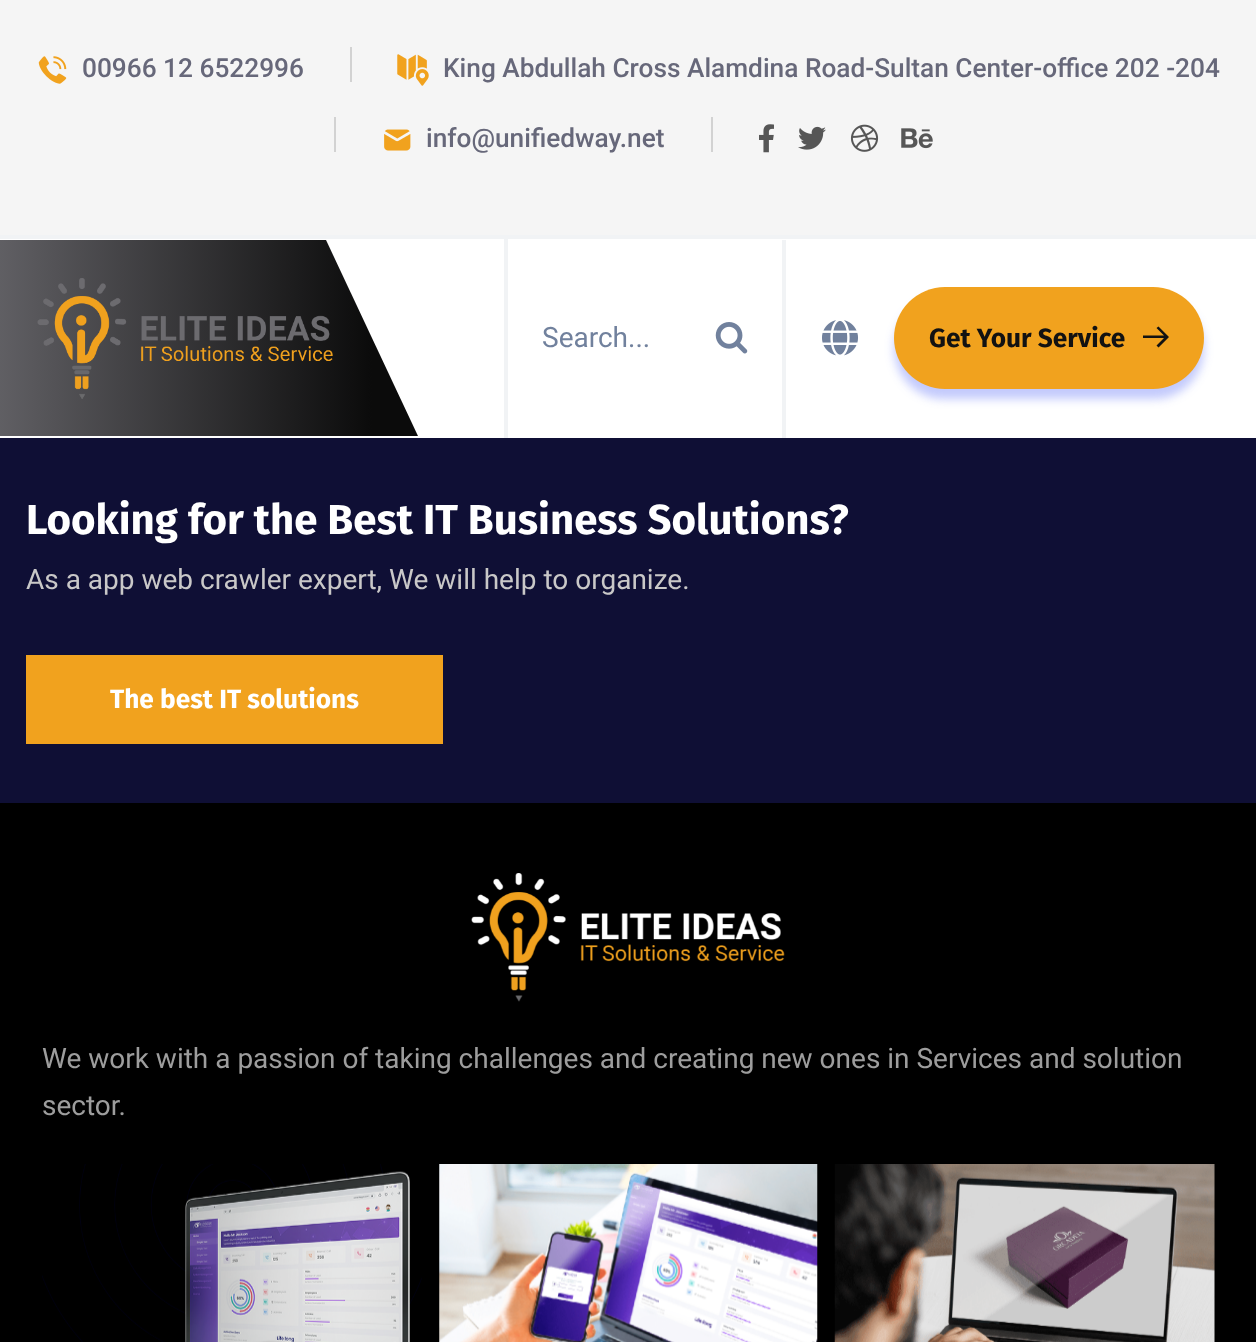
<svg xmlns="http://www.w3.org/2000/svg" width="1256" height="1342">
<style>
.a{font:500 26.25px Roboto;fill:#67687a}
.b{font:28px Roboto;fill:#71819d}
.c{font:bold 26.25px Fira Sans;fill:#121212}
.d{font:bold 42px Fira Sans;fill:#fff}
.e{font:28px Roboto;fill:#c9c8c8}
.f{font:bold 26.25px Fira Sans;fill:#fff}
.g{font:28px Roboto;fill:#9d9d9d}
</style>
<defs>
<linearGradient id="g1" gradientUnits="userSpaceOnUse" x1="372" y1="338" x2="-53" y2="338"><stop offset="0" stop-color="#0b0b0b"/><stop offset="1" stop-color="#6c6b70"/></linearGradient>
</defs>
<rect width="100%" height="100%" fill="#f5f5f5"/>
<image href="1.png" x="38" y="56" width="29" height="28"/>
<path fill="#d2d2d2" d="M350 47h2v35H350z"/>
<image href="2.png" x="397" y="54" width="32" height="32"/>
<path fill="#d2d2d2" d="M334 117h2v35H334z"/>
<image href="3.png" x="384" y="129" width="27" height="22"/>
<path fill="#d2d2d2" d="M711 117h2v35H711z"/>
<image href="4.png" x="759" y="124" width="15" height="29"/>
<image href="5.png" x="798" y="126" width="28" height="24"/>
<image href="6.png" x="850" y="124" width="29" height="28"/>
<image href="7.png" x="901" y="128" width="32" height="21"/>
<path fill="#fff" d="M0 239h1256v199H0z"/>
<path fill="#f1f3f5" d="M0 235h1256v4H0z"/>
<path fill="url(#g1)" d="M-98 240h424l92 196h-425z"/>
<image href="8.png" x="37" y="278" width="296" height="121"/>
<path fill="#f1f3f5" d="M504 238h4v200H504z"/>
<image href="9.png" x="715" y="322" width="33" height="32"/>
<path fill="#f1f3f5" d="M782 240h4v198H782z"/>
<image href="10.png" x="822" y="320" width="36" height="36"/>
<rect fill="#3750f44d" filter="blur(5px)" x="894" y="298" width="310" height="101" rx="50.5"/>
<rect fill="#f1a21e" x="894" y="287" width="310" height="102" rx="51"/>
<path fill="#121212" d="M1158.5 326.5l-2 1.5l7.5 7.5h-21v2.5h21l-7.5 7.5l2 2l10.5-10.5z"/>
<path fill="#0f0f35" d="M0 438h1256v365H0z"/>
<path fill="#f1a21e" d="M26 655h417v89H26z"/>
<path fill="#000" d="M0 803h1256v539H0z"/>
<image href="11.png" x="471" y="873" width="314" height="129"/>
<image href="12.png" x="42" y="1164" width="380" height="178"/>
<image href="13.png" x="439" y="1164" width="379" height="178"/>
<image href="14.png" x="834" y="1164" width="381" height="178"/>
<text class="a" x="82" y="77">00966 12 6522996</text>
<text class="a" x="443" y="77">King Abdullah Cross Alamdina Road-Sultan Center-office 202 -204</text>
<text class="a" x="426" y="147">info@unifiedway.net</text>
<text class="b" x="542" y="347">Search...</text>
<text class="c" x="929" y="347">Get Your Service</text>
<text class="d" x="26" y="534">Looking for the Best IT Business Solutions?</text>
<text class="e" x="26" y="589">As a app web crawler expert, We will help to organize.</text>
<text class="f" x="110" y="708">The best IT solutions</text>
<text class="g" x="42" y="1068">We work with a passion of taking challenges and creating new ones in Services and solution</text>
<text class="g" x="42" y="1115">sector.</text>
</svg>
